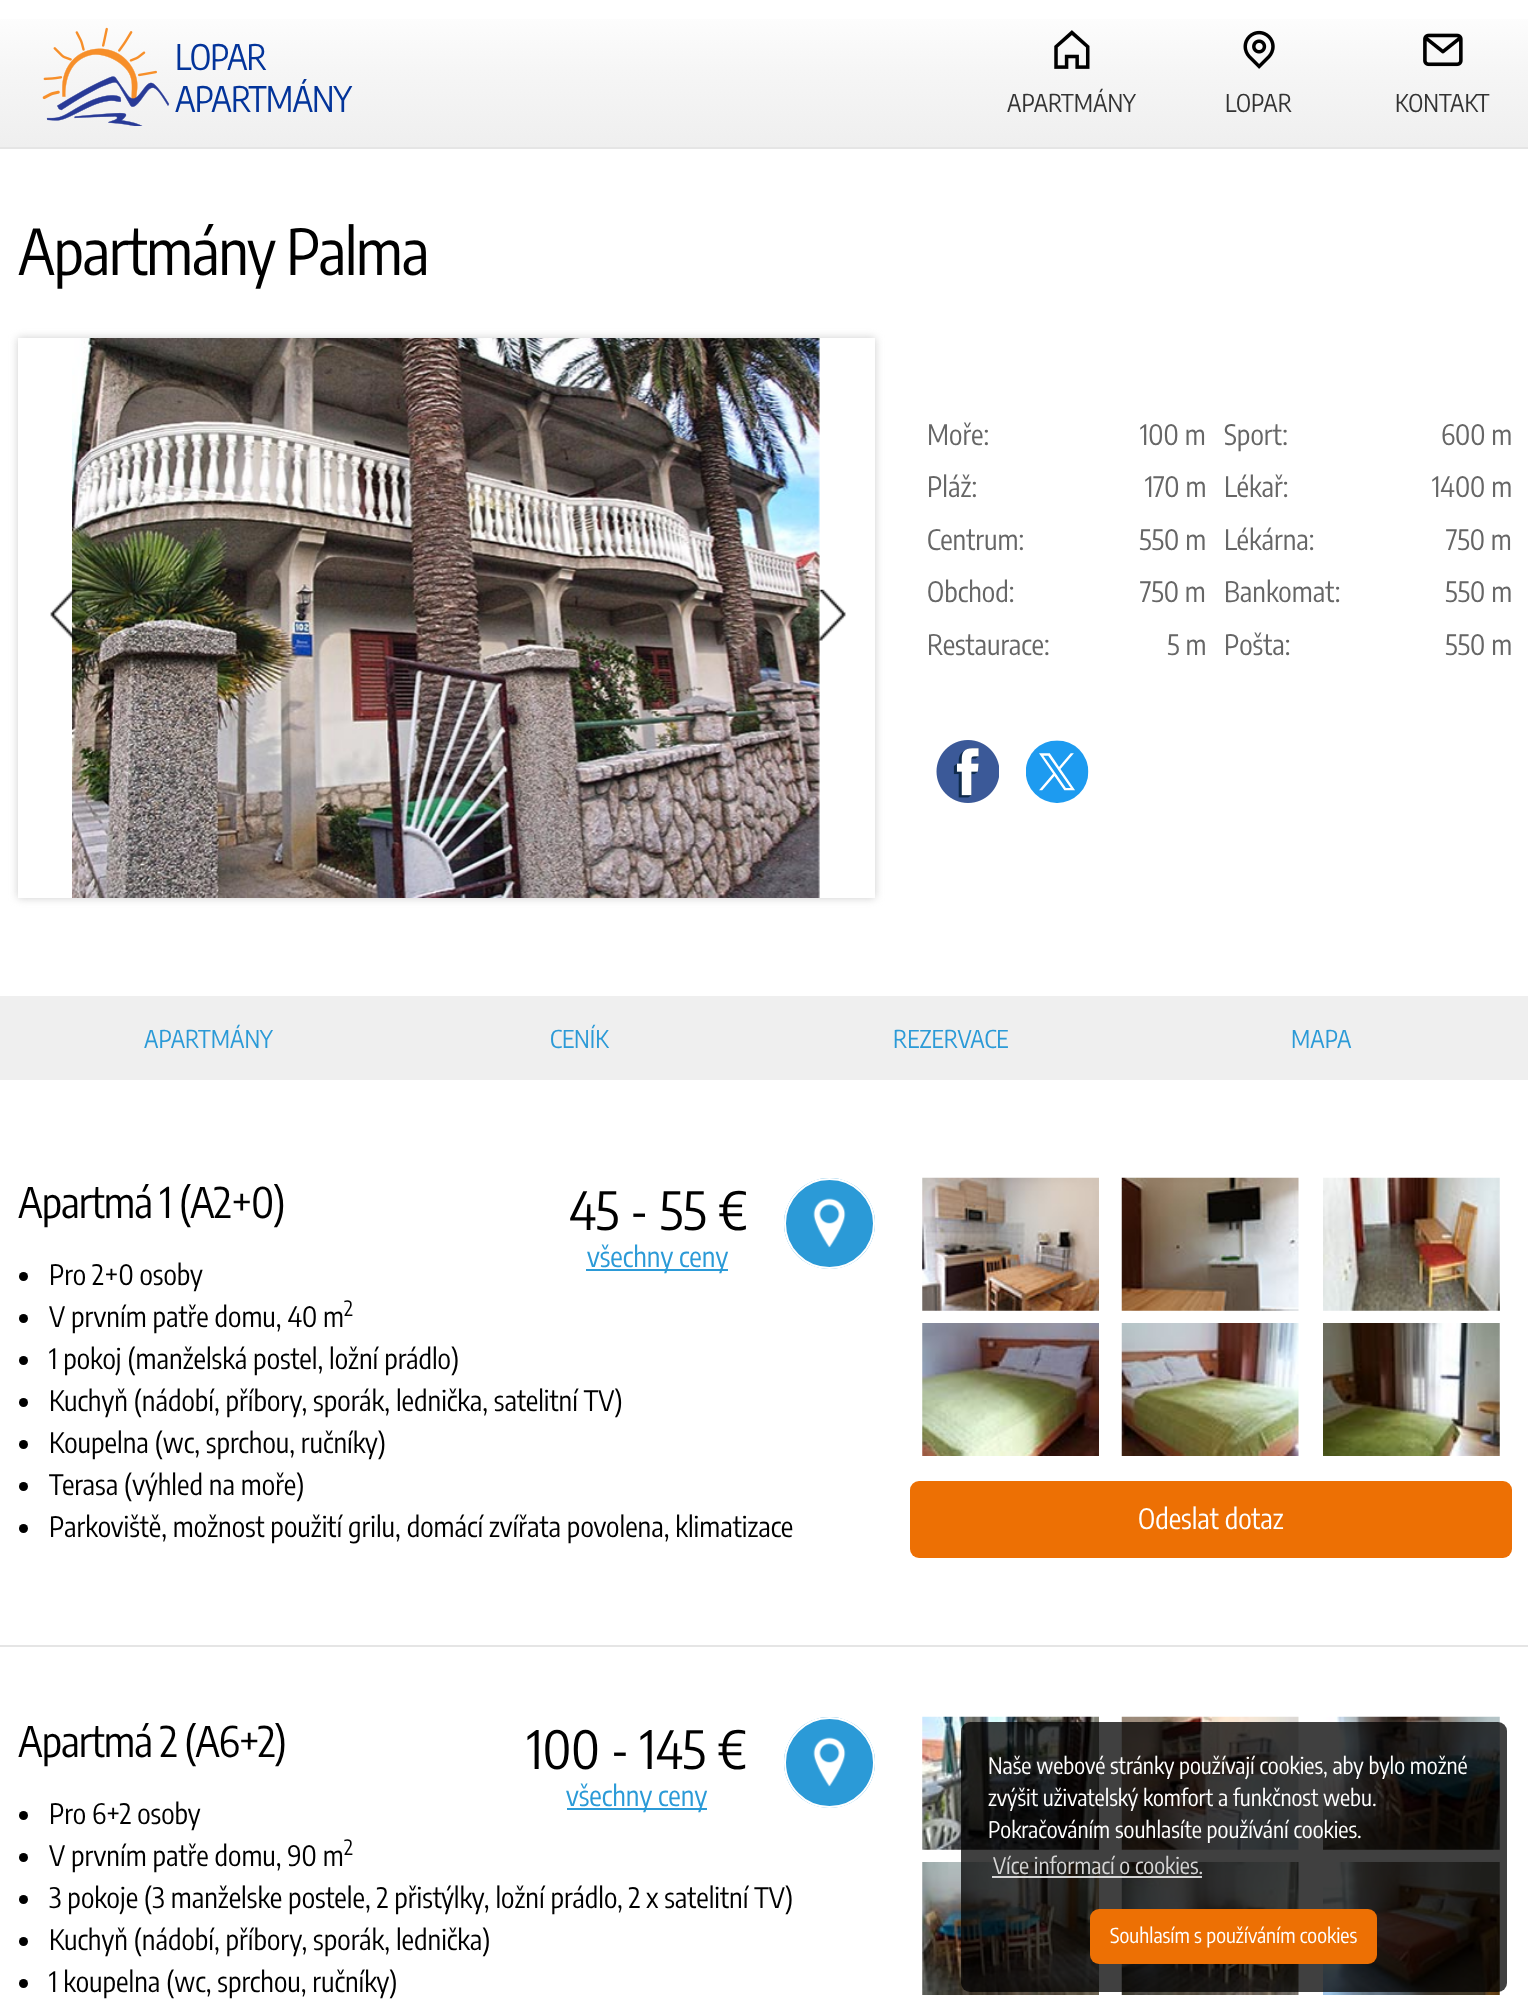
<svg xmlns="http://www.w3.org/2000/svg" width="1528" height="2014">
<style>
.a{font:35px Encode Sans Condensed;letter-spacing:-0.9px;fill:#03349a}
.b{font:24.5px Encode Sans Condensed;fill:#333}
.c{font:63px Encode Sans Condensed;letter-spacing:-1.6px;fill:#000}
.d{font:28px Encode Sans Condensed;fill:#666}
.e{font:24.5px Encode Sans Condensed;fill:#2b9ad7}
.f{font:42px Encode Sans Condensed;letter-spacing:-1px;fill:#000}
.g{font:52.5px Encode Sans Condensed;fill:#000}
.h{font:28px Encode Sans Condensed;fill:#2b9ad7}
.i{font:28px Encode Sans Condensed;fill:#000}
.j{font:21px Encode Sans Condensed;fill:#000}
.k{font:28px Encode Sans Condensed;fill:#fff}
.l{font:22.75px Encode Sans Condensed;fill:#fff}
.m{font:22.75px Encode Sans Condensed;fill:#d5d5d5}
.n{font:20.5px Encode Sans Condensed;fill:#fff}
</style>
<defs>
<linearGradient id="g1" gradientUnits="userSpaceOnUse" x1="765" y1="0" x2="765" y2="147"><stop offset="0" stop-color="#fff"/><stop offset="0.47" stop-color="#f6f6f6"/><stop offset="1" stop-color="#efefef"/></linearGradient>
</defs>
<rect width="100%" height="100%" fill="#fff"/>
<path fill="url(#g1)" d="M0 19h1528v128H0z"/>
<path fill="#e5e5e5" d="M0 147h1528v2H0z"/>
<image href="1.png" x="42" y="27" width="128" height="99"/>
<image href="2.png" x="1054" y="30" width="36" height="39"/>
<image href="3.png" x="1243" y="30" width="32" height="39"/>
<image href="4.png" x="1423" y="33" width="40" height="34"/>
<path fill="#ccc" filter="blur(4.5px)" d="M18 338h857v560H18z"/>
<path fill="#fff" d="M18 338h857v560H18z"/>
<image href="5.png" x="72" y="338" width="748" height="560"/>
<image href="6.png" x="50" y="589" width="28" height="52"/>
<image href="7.png" x="818" y="589" width="28" height="52"/>
<image href="8.png" x="936" y="740" width="63" height="63"/>
<image href="9.png" x="1026" y="740" width="63" height="63"/>
<path fill="#efefef" d="M0 996h1528v84H0z"/>
<path fill="#e5e5e5" d="M0 1645h1528v2H0z"/>
<circle fill="#2b9ad7" cx="829.5" cy="1223.5" r="45.5"/>
<image href="10.png" x="813" y="1198" width="33" height="50"/>
<circle fill="none" stroke="#fff" stroke-width="2" cx="829.5" cy="1223.5" r="44.5"/>
<path fill="#2b9ad7" d="M586 1269h142v2H586z"/>
<circle fill="#000" cx="23.5" cy="1276.5" r="4.5"/>
<circle fill="#000" cx="23.5" cy="1318.5" r="4.5"/>
<circle fill="#000" cx="23.5" cy="1360.5" r="4.5"/>
<circle fill="#000" cx="23.5" cy="1402.5" r="4.5"/>
<circle fill="#000" cx="23.5" cy="1444.5" r="4.5"/>
<circle fill="#000" cx="23.5" cy="1486.5" r="4.5"/>
<circle fill="#000" cx="23.5" cy="1528.5" r="4.5"/>
<image href="11.png" x="922" y="1177" width="177" height="134"/>
<image href="12.png" x="1121" y="1177" width="178" height="134"/>
<image href="13.png" x="1323" y="1177" width="177" height="134"/>
<image href="14.png" x="922" y="1323" width="177" height="133"/>
<image href="15.png" x="1121" y="1323" width="178" height="133"/>
<image href="16.png" x="1323" y="1323" width="177" height="133"/>
<rect fill="#ed7004" x="910" y="1481" width="602" height="77" rx="9"/>
<circle fill="#2b9ad7" cx="829.5" cy="1762.5" r="45.5"/>
<image href="10.png" x="813" y="1737" width="33" height="50"/>
<circle fill="none" stroke="#fff" stroke-width="2" cx="829.5" cy="1762.5" r="44.5"/>
<path fill="#2b9ad7" d="M567 1808h140v2H567z"/>
<circle fill="#000" cx="23.5" cy="1815.5" r="4.5"/>
<circle fill="#000" cx="23.5" cy="1857.5" r="4.5"/>
<circle fill="#000" cx="23.5" cy="1899.5" r="4.5"/>
<circle fill="#000" cx="23.5" cy="1941.5" r="4.5"/>
<circle fill="#000" cx="23.5" cy="1983.5" r="4.5"/>
<image href="17.png" x="922" y="1716" width="177" height="134"/>
<image href="18.png" x="1121" y="1716" width="178" height="134"/>
<image href="19.png" x="1323" y="1716" width="177" height="134"/>
<image href="20.png" x="922" y="1862" width="177" height="133"/>
<image href="21.png" x="1121" y="1862" width="178" height="133"/>
<image href="22.png" x="1323" y="1862" width="177" height="133"/>
<rect fill="#000000bf" x="961" y="1722" width="546" height="270" rx="9"/>
<path fill="#ffffffcc" d="M992 1876h210v2H992z"/>
<rect fill="#ed7004" x="1090" y="1909" width="287" height="55" rx="9"/>
<text class="a" x="175" y="70">LOPAR</text>
<text class="a" x="175" y="112">APARTMÁNY</text>
<text class="b" x="1007" y="112">APARTMÁNY</text>
<text class="b" x="1225" y="112">LOPAR</text>
<text class="b" x="1395" y="112">KONTAKT</text>
<text class="c" x="18" y="275">Apartmány Palma</text>
<text class="d" x="927" y="445">Moře:</text>
<text class="d" x="1140" y="445">100 m</text>
<text class="d" x="1224" y="445">Sport:</text>
<text class="d" x="1441" y="445">600 m</text>
<text class="d" x="927" y="497">Pláž:</text>
<text class="d" x="1145" y="497">170 m</text>
<text class="d" x="1224" y="497">Lékař:</text>
<text class="d" x="1432" y="497">1400 m</text>
<text class="d" x="927" y="550">Centrum:</text>
<text class="d" x="1139" y="550">550 m</text>
<text class="d" x="1224" y="550">Lékárna:</text>
<text class="d" x="1446" y="550">750 m</text>
<text class="d" x="927" y="602">Obchod:</text>
<text class="d" x="1140" y="602">750 m</text>
<text class="d" x="1224" y="602">Bankomat:</text>
<text class="d" x="1445" y="602">550 m</text>
<text class="d" x="927" y="655">Restaurace:</text>
<text class="d" x="1167" y="655">5 m</text>
<text class="d" x="1224" y="655">Pošta:</text>
<text class="d" x="1445" y="655">550 m</text>
<text class="e" x="144" y="1048">APARTMÁNY</text>
<text class="e" x="550" y="1048">CENÍK</text>
<text class="e" x="893" y="1048">REZERVACE</text>
<text class="e" x="1291" y="1048">MAPA</text>
<text class="f" x="18" y="1218">Apartmá 1 (A2+0)</text>
<text class="g" x="569" y="1230">45 - 55 €</text>
<text class="h" x="587" y="1267">všechny ceny</text>
<text class="i" x="49" y="1285">Pro 2+0 osoby</text>
<text class="i" x="49" y="1327">V prvním patře domu, 40 m</text>
<text class="j" x="344" y="1316">2</text>
<text class="i" x="49" y="1369">1 pokoj (manželská postel, ložní prádlo)</text>
<text class="i" x="49" y="1411">Kuchyň (nádobí, příbory, sporák, lednička, satelitní TV)</text>
<text class="i" x="49" y="1453">Koupelna (wc, sprchou, ručníky)</text>
<text class="i" x="49" y="1495">Terasa (výhled na moře)</text>
<text class="i" x="49" y="1537">Parkoviště, možnost použití grilu, domácí zvířata povolena, klimatizace</text>
<text class="k" x="1138" y="1529">Odeslat dotaz</text>
<text class="f" x="18" y="1757">Apartmá 2 (A6+2)</text>
<text class="g" x="527" y="1769">100 - 145 €</text>
<text class="h" x="566" y="1806">všechny ceny</text>
<text class="i" x="49" y="1824">Pro 6+2 osoby</text>
<text class="i" x="49" y="1866">V prvním patře domu, 90 m</text>
<text class="j" x="344" y="1855">2</text>
<text class="i" x="49" y="1908">3 pokoje (3 manželske postele, 2 přistýlky, ložní prádlo, 2 x satelitní TV)</text>
<text class="i" x="49" y="1950">Kuchyň (nádobí, příbory, sporák, lednička)</text>
<text class="i" x="49" y="1992">1 koupelna (wc, sprchou, ručníky)</text>
<text class="l" x="988" y="1774">Naše webové stránky používají cookies, aby bylo možné</text>
<text class="l" x="988" y="1806">zvýšit uživatelský komfort a funkčnost webu.</text>
<text class="l" x="988" y="1838">Pokračováním souhlasíte používání cookies.</text>
<text class="m" x="993" y="1874">Více informací o cookies.</text>
<text class="n" x="1110" y="1943">Souhlasím s používáním cookies</text>
</svg>
